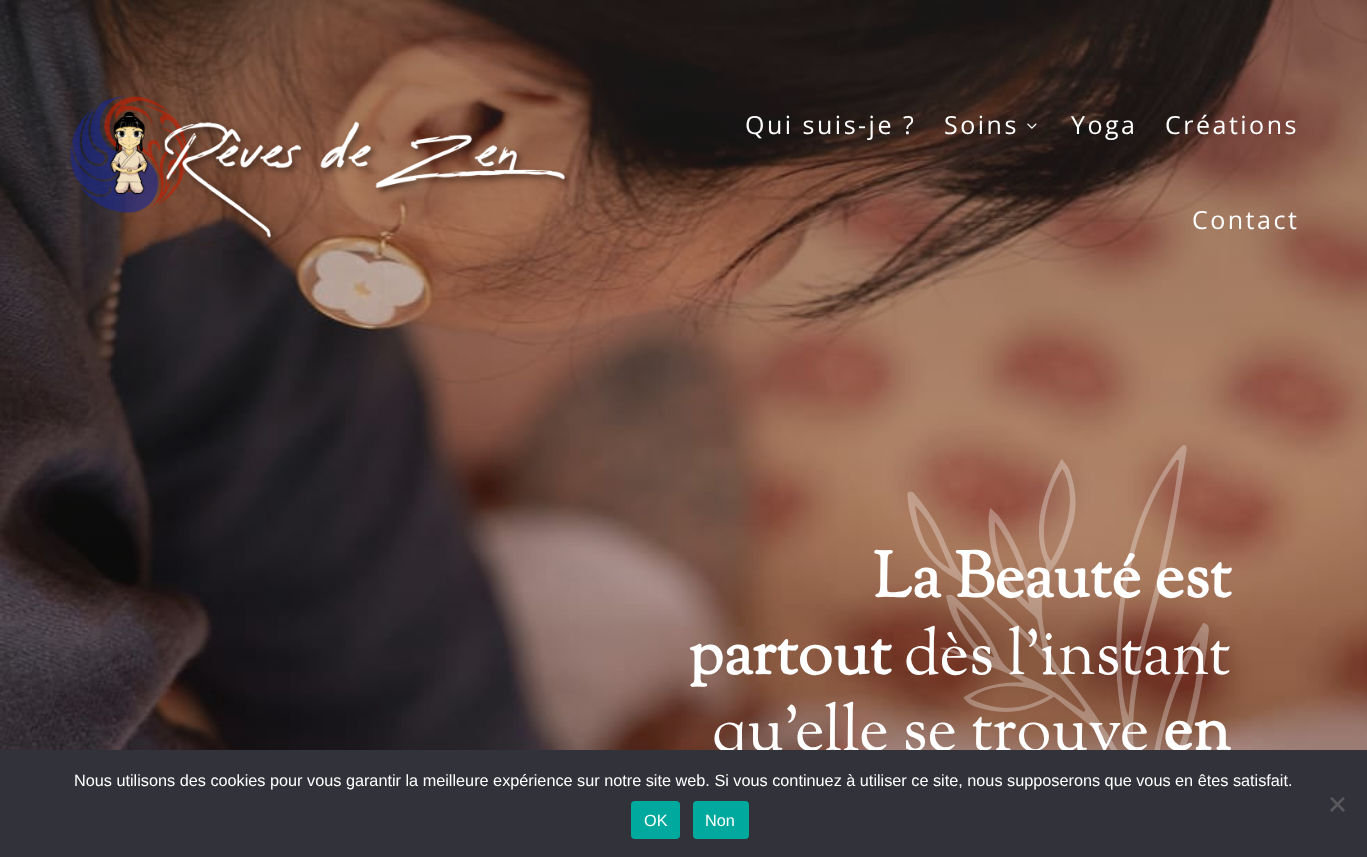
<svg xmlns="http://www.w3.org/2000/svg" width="1367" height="857">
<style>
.a{font:25px Open Sans;letter-spacing:2.5px;fill:#fff}
.b{font:bold 63.75px Sorts Mill Goudy;fill:#fff}
.c{font:63.75px Sorts Mill Goudy;fill:#fff}
.d{font:16.25px Liberation Sans;fill:#fff}
</style>
<rect width="100%" height="100%" fill="#fff"/>
<image href="1.png" x="0" y="0" width="1367" height="750"/>
<image href="2.png" x="70" y="95" width="501" height="147"/>
<image href="3.png" x="1027" y="123" width="10" height="6"/>
<image href="4.png" x="907" y="445" width="302" height="305"/>
<text class="a" x="745" y="134">Qui suis-je ?</text>
<text class="a" x="944" y="134">Soins</text>
<text class="a" x="1071" y="134">Yoga</text>
<text class="a" x="1165" y="134">Créations</text>
<text class="a" x="1192" y="229">Contact</text>
<text class="b" x="873" y="597">La Beauté est</text>
<text class="b" x="688" y="674">partout</text>
<text class="c" x="904" y="674">dès l’instant</text>
<text class="c" x="712" y="750">qu’elle se trouve</text>
<text class="b" x="1163" y="750">en</text>
<path fill="#32323a" d="M0 750h1367v107H0z"/>
<text class="d" x="74" y="786">Nous utilisons des cookies pour vous garantir la meilleure expérience sur notre site web. Si vous continuez à utiliser ce site, nous supposerons que vous en êtes satisfait.</text>
<path fill="#59595d" d="M1343 797l2 1.5l-13 13.5l-2-2z"/>
<path fill="#59595d" d="M1330 798.5l2-1.5l13 13l-2 2z"/>
<rect fill="#00a99d" x="631" y="801" width="49" height="38" rx="4"/>
<text class="d" x="644" y="826">OK</text>
<rect fill="#00a99d" x="693" y="801" width="56" height="38" rx="4"/>
<text class="d" x="705" y="826">Non</text>
</svg>
